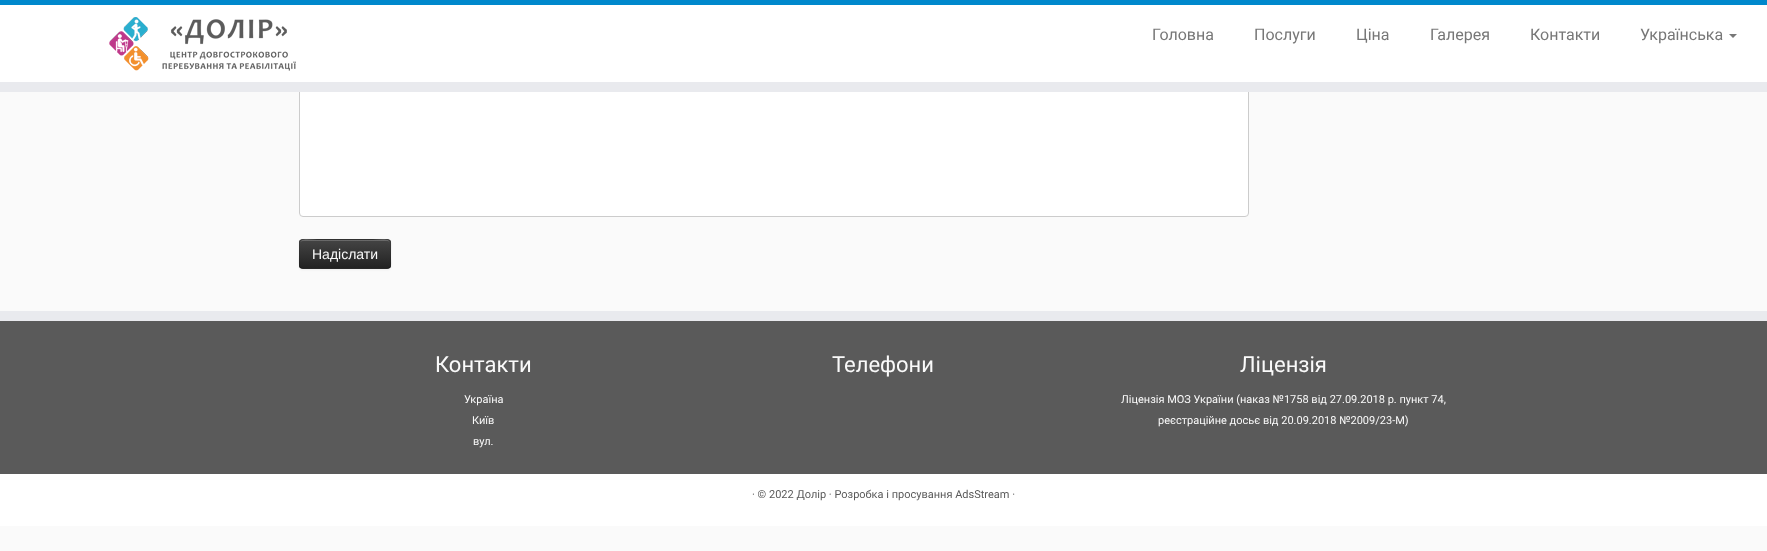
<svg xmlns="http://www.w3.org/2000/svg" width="1767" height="551">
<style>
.a{font:16px Roboto;fill:#777}
.b{font:14px Liberation Sans;fill:#fafafa}
.c{font:22px Roboto;fill:#fafafa}
.d{font:11px Roboto;fill:#fafafa}
.e{font:11px Roboto;fill:#5a5a5a}
</style>
<defs>
<clipPath id="clip1"><rect x="299" y="239" width="92" height="30" rx="4"/></clipPath>
<linearGradient id="g1" gradientUnits="userSpaceOnUse" x1="345" y1="240" x2="345" y2="268"><stop offset="0" stop-color="#444"/><stop offset="1" stop-color="#222"/></linearGradient>
</defs>
<rect width="100%" height="100%" fill="#fafafa"/>
<rect fill="#fff" stroke="#ccc" x="299.5" y="-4.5" width="949" height="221" rx="3.5"/>
<path fill="#fff" d="M0 5h1767v77H0z"/>
<path fill="#08c" d="M0 0h1767v5H0z"/>
<path fill="#e9eaee" d="M0 82h1767v10H0z"/>
<image href="1.png" x="109" y="17" width="187" height="54"/>
<path fill="#777" d="M1729 34h8l-4 4z"/>
<rect fill="#0000000d" filter="blur(1px)" x="299" y="240" width="92" height="30" rx="4"/>
<rect fill="#363636" x="299" y="239" width="92" height="30" rx="4"/>
<g clip-path="url(#clip1)">
<path fill="url(#g1)" d="M299 240h92v28H299z"/>
</g>
<path fill="#ffffff33" d="M303 241h84c2 0 3 1 3 3c0-8-13-4-17-4h-56c-4 0-17-4-17 4c0-2 1-3 3-3z"/>
<path fill="none" stroke="#00000040" d="M389.5 267.5l-2 1h-85l-2-1"/>
<path fill="none" stroke="#0000001a" d="M300.5 267.5c-2-2-1-10.5-1-13.5c0-17.5-2-14.5 17.5-14.5h56c21.5 0 17.5-2.5 17.5 18c0 3 1.5 7.5-1 10"/>
<path fill="#5a5a5a" d="M0 321h1767v153H0z"/>
<path fill="#e9eaee" d="M0 311h1767v10H0z"/>
<path fill="#fff" d="M0 474h1767v52H0z"/>
<text class="a" x="1152" y="40">Головна</text>
<text class="a" x="1254" y="40">Послуги</text>
<text class="a" x="1356" y="40">Ціна</text>
<text class="a" x="1430" y="40">Галерея</text>
<text class="a" x="1530" y="40">Контакти</text>
<text class="a" x="1640" y="40">Українська</text>
<text class="b" x="312" y="259">Надіслати</text>
<text class="c" x="435" y="372">Контакти</text>
<text class="d" x="464" y="403">Україна</text>
<text class="d" x="472" y="424">Київ</text>
<text class="d" x="473" y="445">вул.</text>
<text class="c" x="832" y="372">Телефони</text>
<text class="c" x="1240" y="372">Ліцензія</text>
<text class="d" x="1121" y="403">Ліцензія МОЗ України (наказ №1758 від 27.09.2018 р. пункт 74,</text>
<text class="d" x="1158" y="424">реєстраційне досьє від 20.09.2018 №2009/23-М)</text>
<text class="e" x="752" y="498">· © 2022 Долір · Розробка і просування AdsStream ·</text>
</svg>
